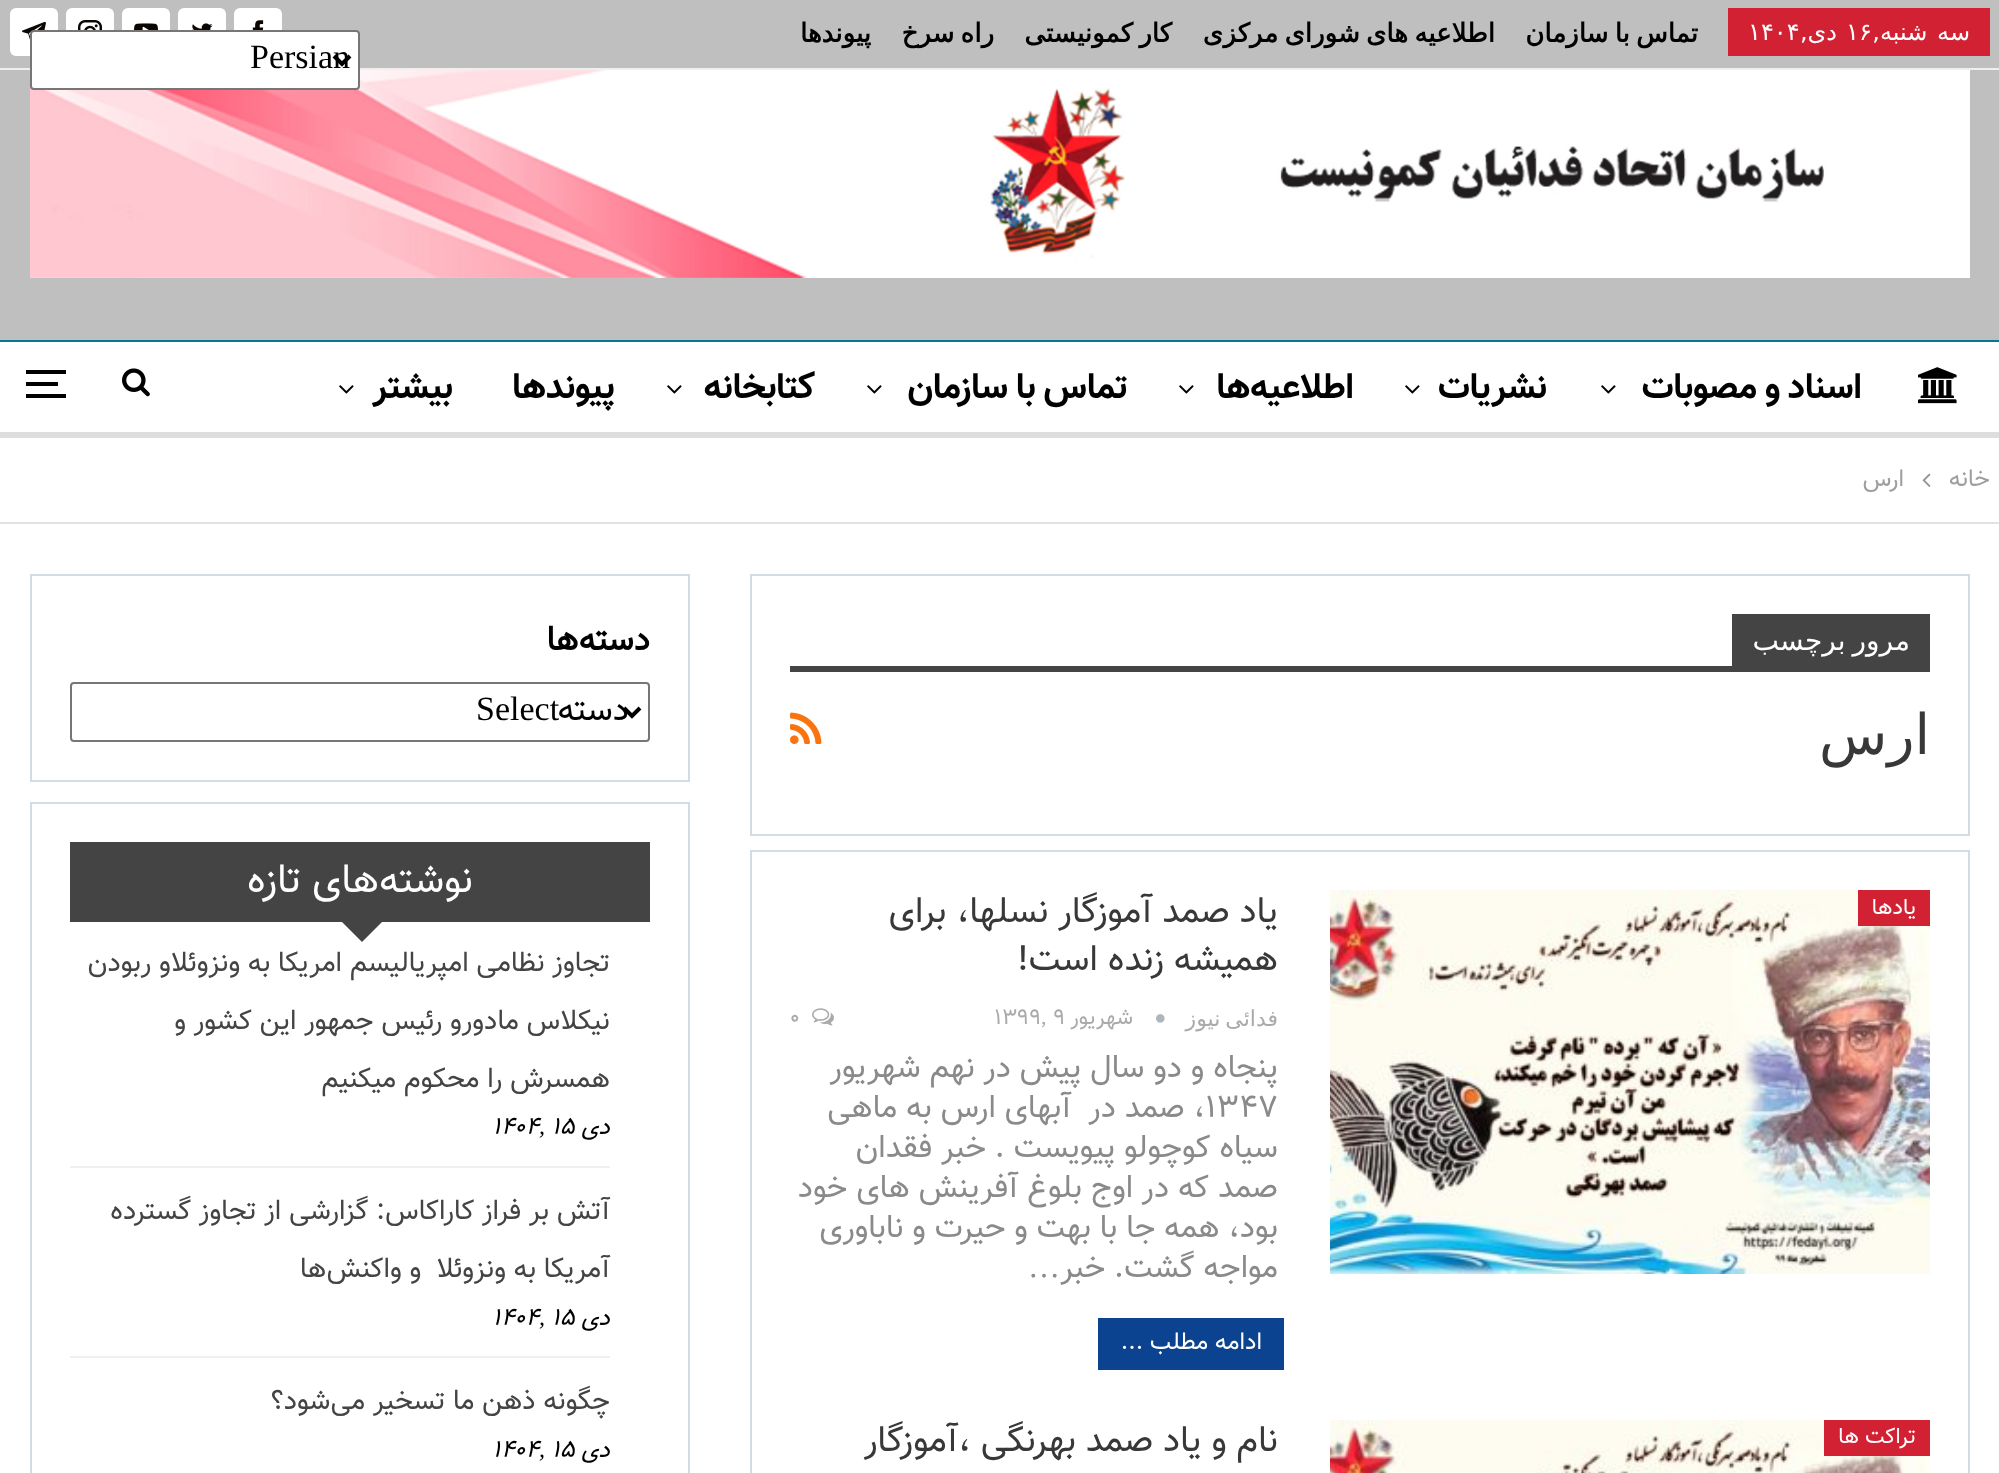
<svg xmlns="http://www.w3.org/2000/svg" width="1999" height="1473">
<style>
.a{font:24px DejaVu Sans;direction:rtl;fill:#fff}
.b{font:24px DejaVu Sans;fill:#fff}
.c{font:bold 26px DejaVu Sans;direction:rtl;fill:#000}
.d{font:bold 36px 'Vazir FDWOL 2';letter-spacing:0.9px;direction:rtl;fill:#000}
.e{font:24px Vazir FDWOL;direction:rtl;fill:#9e9e9e}
.f{font:28px DejaVu Sans;direction:rtl;fill:#fff}
.g{font:56px DejaVu Sans;direction:rtl;fill:#383838}
.h{font:22px Vazir FDWOL;direction:rtl;fill:#fff}
.i{font:36px Vazir FDWOL;direction:rtl;fill:#383838}
.j{font:22px DejaVu Sans;direction:rtl;fill:#aaa}
.k{font:22px Vazir FDWOL;direction:rtl;fill:#aaa}
.l{font:22px Vazir FDWOL;fill:#aaa}
.m{font:22px Liberation Serif;fill:#aaa}
.n{font:32px Vazir FDWOL;direction:rtl;fill:#8a8a8a}
.o{font:32px Vazir FDWOL;fill:#8a8a8a}
.p{font:32px Liberation Serif;fill:#8a8a8a}
.q{font:24px Vazir FDWOL;direction:rtl;fill:#fff}
.r{font:bold 34px Vazir FDWOL;direction:rtl;fill:#000}
.s{font:34px Liberation Serif;fill:#000}
.t{font:34px Vazir FDWOL;direction:rtl;fill:#000}
.u{font:40px Vazir FDWOL;direction:rtl;fill:#fff}
.v{font:28px Vazir FDWOL;direction:rtl;fill:#444}
.w{font:italic 24px Vazir FDWOL;direction:rtl;fill:#000}
.x{font:italic 24px Vazir FDWOL;fill:#000}
.y{font:italic 24px Liberation Serif;fill:#000}
</style>
<rect width="100%" height="100%" fill="#fff"/>
<path fill="#bfbfbf" d="M0 0h1999v340H0z"/>
<path fill="#efefef" d="M0 68h1999v2H0z"/>
<path fill="#d12133" d="M1728 8h262v48H1728z"/>
<rect fill="#fff" x="234" y="8" width="48" height="48" rx="6"/>
<image href="1.png" x="252" y="20" width="12" height="10"/>
<rect fill="#fff" x="178" y="8" width="48" height="48" rx="6"/>
<image href="2.png" x="192" y="23" width="21" height="7"/>
<rect fill="#fff" x="122" y="8" width="48" height="48" rx="6"/>
<image href="3.png" x="134" y="23" width="24" height="7"/>
<rect fill="#fff" x="66" y="8" width="48" height="48" rx="6"/>
<image href="4.png" x="78" y="20" width="24" height="10"/>
<rect fill="#fff" x="10" y="8" width="48" height="48" rx="6"/>
<image href="5.png" x="22" y="21" width="24" height="19"/>
<image href="6.png" x="30" y="70" width="1940" height="208"/>
<path fill="#077796" d="M0 340h1999v2H0z"/>
<path fill="#dedede" d="M0 432h1999v6H0z"/>
<image href="7.png" x="1918" y="367" width="39" height="37"/>
<image href="8.png" x="1601" y="385" width="15" height="9"/>
<image href="8.png" x="1405" y="385" width="15" height="9"/>
<image href="8.png" x="1179" y="385" width="15" height="9"/>
<image href="8.png" x="867" y="385" width="15" height="9"/>
<image href="8.png" x="667" y="385" width="15" height="9"/>
<image href="8.png" x="339" y="385" width="15" height="9"/>
<image href="9.png" x="122" y="368" width="28" height="29"/>
<path fill="#000" d="M26 382h32v4H26z"/>
<path fill="#000" d="M26 370h40v4H26z"/>
<path fill="#000" d="M26 394h40v4H26z"/>
<path fill="#e2e2e2" d="M0 522h1999v2H0z"/>
<image href="10.png" x="1922" y="473" width="9" height="14"/>
<path fill="none" stroke="#d2dce3" stroke-width="2" d="M751 575h1218v260H751z"/>
<path fill="#444" d="M1732 614h198v52H1732z"/>
<path fill="#444" d="M790 666h1140v6H790z"/>
<image href="11.png" x="790" y="712" width="32" height="32"/>
<path fill="none" stroke="#d2dce3" stroke-width="2" d="M751 851h1218v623H751z"/>
<image href="12.png" x="1330" y="890" width="600" height="384"/>
<path fill="#d12133" d="M1858 890h72v36H1858z"/>
<image href="13.png" x="1156" y="1014" width="9" height="9"/>
<image href="14.png" x="812" y="1008" width="22" height="18"/>
<path fill="#0b4391" d="M1098 1318h186v52H1098z"/>
<image href="15.png" x="1330" y="1420" width="600" height="53"/>
<path fill="#d12133" d="M1824 1420h106v36H1824z"/>
<path fill="none" stroke="#d2dce3" stroke-width="2" d="M31 575h658v206H31z"/>
<rect fill="none" stroke="#767676" stroke-width="2" x="71" y="683" width="578" height="58" rx="3"/>
<path fill="none" stroke="#000" stroke-width="4" d="M624 708l8 8l8-8"/>
<path fill="none" stroke="#d2dce3" stroke-width="2" d="M31 803h658v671H31z"/>
<path fill="#444" d="M70 842h580v80H70z"/>
<path fill="#444" d="M342 922h40l-20 20z"/>
<path fill="#f0f0f0" d="M70 1166h540v2H70z"/>
<path fill="#f0f0f0" d="M70 1356h540v2H70z"/>
<rect fill="#fff" stroke="#767676" stroke-width="2" x="31" y="31" width="328" height="58" rx="3"/>
<path fill="none" stroke="#000" stroke-width="4" d="M334 56l8 8l8-8"/>
<text class="a" x="1970" y="40" word-spacing="2">سه شنبه,</text>
<text class="b" x="1846" y="40">۱۶</text>
<text class="a" x="1837" y="40">دی,</text>
<text class="b" x="1748" y="40">۱۴۰۴</text>
<text class="c" x="1698" y="42" word-spacing="-2">تماس با سازمان</text>
<text class="c" x="1495" y="42" word-spacing="-2">اطلاعیه های شورای مرکزی</text>
<text class="c" x="1172" y="42" word-spacing="-2">کار کمونیستی</text>
<text class="c" x="994" y="42" word-spacing="-2">راه سرخ</text>
<text class="c" x="871" y="42">پیوندها</text>
<text class="d" x="1862" y="398" word-spacing="-2">اسناد و مصوبات</text>
<text class="d" x="1547" y="398">نشریات</text>
<text class="d" x="1354" y="398">اطلاعیه‌ها</text>
<text class="d" x="1128" y="398" word-spacing="-2">تماس با سازمان</text>
<text class="d" x="815" y="398">کتابخانه</text>
<text class="d" x="615" y="398">پیوندها</text>
<text class="d" x="453" y="398">بیشتر</text>
<text class="e" x="1990" y="486">خانه</text>
<text class="e" x="1904" y="486">ارس</text>
<text class="f" x="1910" y="650" word-spacing="-2">مرور برچسب</text>
<text class="g" x="1930" y="754">ارس</text>
<text class="h" x="1916" y="914">یادها</text>
<text class="i" x="1278" y="922">یاد صمد آموزگار نسلها، برای</text>
<text class="i" x="1278" y="970">همیشه زنده است!</text>
<text class="j" x="1278" y="1026" word-spacing="-2">فدائی نیوز</text>
<text class="k" x="1133" y="1024">شهریور</text>
<text class="l" x="1053" y="1024">۹</text>
<text class="m" x="1041" y="1024">,</text>
<text class="l" x="994" y="1024">۱۳۹۹</text>
<text class="l" x="790" y="1024">0</text>
<text class="n" x="1278" y="1077">پنجاه و دو سال پیش در نهم شهریور</text>
<text class="o" x="1205" y="1117">1347</text>
<text class="n" xml:space="preserve" x="1205" y="1117">، صمد در  آبهای ارس به ماهی</text>
<text class="n" x="1278" y="1157">سیاه کوچولو پیویست . خبر فقدان</text>
<text class="n" x="1278" y="1197">صمد که در اوج بلوغ آفرینش های خود</text>
<text class="n" x="1278" y="1237">بود، همه جا با بهت و حیرت و ناباوری</text>
<text class="n" x="1278" y="1277">مواجه گشت. خبر</text>
<text class="p" x="1028" y="1277">…</text>
<text class="q" x="1262" y="1349">ادامه مطلب ...</text>
<text class="h" x="1916" y="1443">تراکت ها</text>
<text class="i" x="1278" y="1451">نام و یاد صمد بهرنگی ،آموزگار</text>
<text class="r" x="650" y="650">دسته‌ها</text>
<text class="s" x="476" y="720">Select</text>
<text class="t" x="629" y="720">دسته</text>
<text class="u" x="473" y="892">نوشته‌های تازه</text>
<text class="v" x="610" y="971">تجاوز نظامی امپریالیسم امریکا به ونزوئلاو ربودن</text>
<text class="v" x="610" y="1029">نیکلاس مادورو رئیس جمهور این کشور و</text>
<text class="v" x="610" y="1087">همسرش را محکوم میکنیم</text>
<text class="w" x="610" y="1134">دی</text>
<text class="x" x="552" y="1134">۱۵</text>
<text class="x" x="492" y="1134">۱۴۰۴</text>
<text class="y" x="539" y="1134">,</text>
<text class="v" x="610" y="1219">آتش بر فراز کاراکاس: گزارشی از تجاوز گسترده</text>
<text class="v" xml:space="preserve" x="610" y="1277">آمریکا به ونزوئلا  و واکنش‌ها</text>
<text class="w" x="610" y="1325">دی</text>
<text class="x" x="552" y="1325">۱۵</text>
<text class="x" x="492" y="1325">۱۴۰۴</text>
<text class="y" x="539" y="1325">,</text>
<text class="v" x="610" y="1409">چگونه ذهن ما تسخیر می‌شود؟</text>
<text class="w" x="610" y="1457">دی</text>
<text class="x" x="552" y="1457">۱۵</text>
<text class="x" x="492" y="1457">۱۴۰۴</text>
<text class="y" x="539" y="1457">,</text>
<text class="s" x="250" y="68">Persian</text>
</svg>
